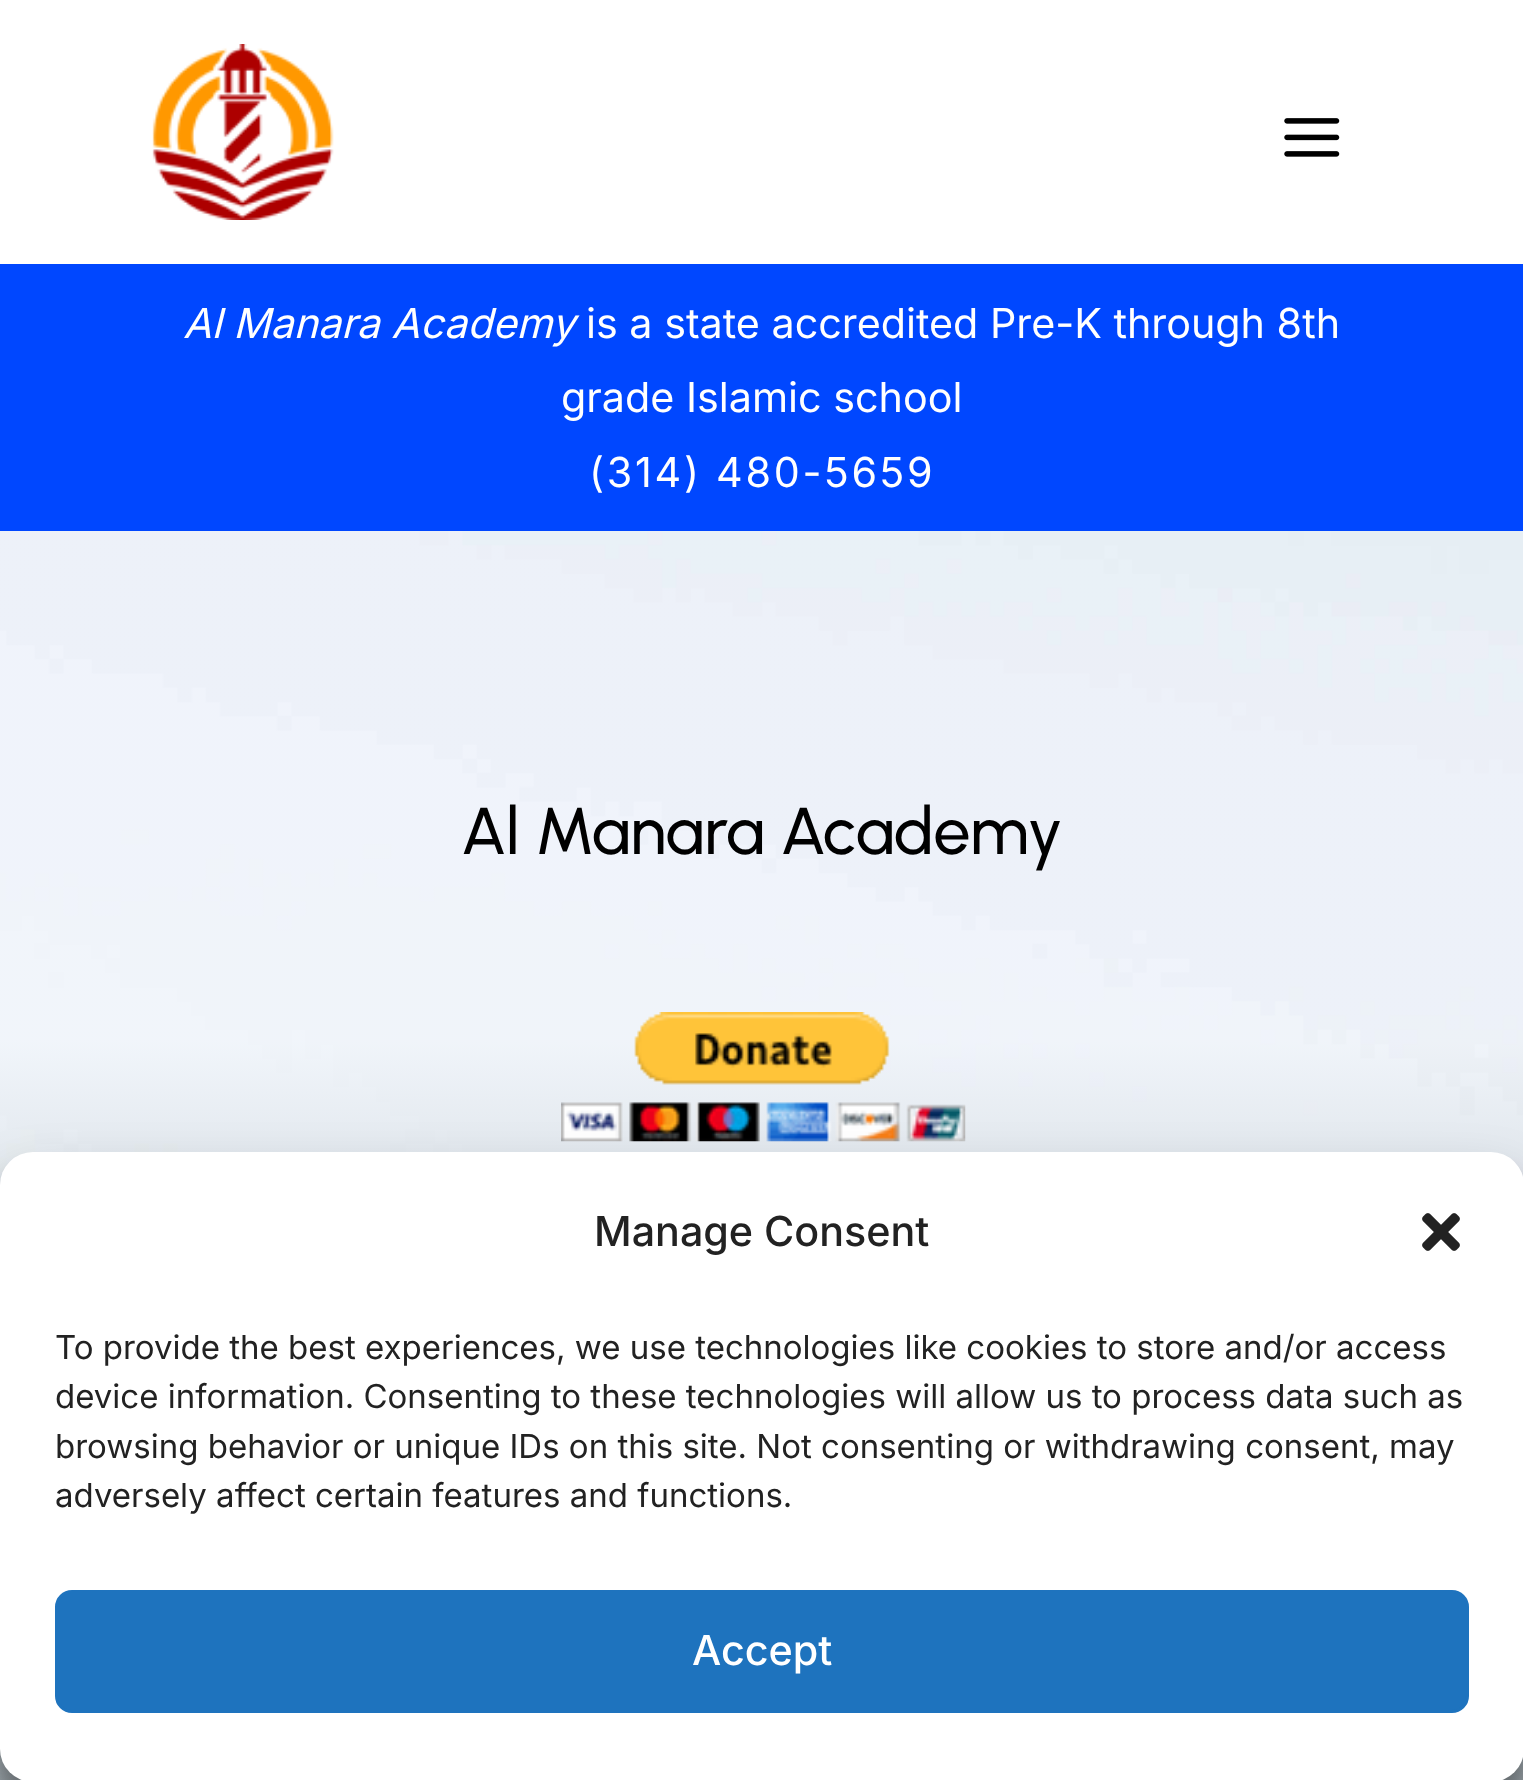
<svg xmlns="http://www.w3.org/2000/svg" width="1523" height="1780">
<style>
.a{font:italic 41.25px Inter;fill:#fff}
.b{font:41.25px Inter;fill:#fff}
.c{font:41.25px Inter;letter-spacing:2.75px;fill:#fff}
.d{font:500 66px Urbanist;fill:#000}
.e{font:500 41.25px Inter;fill:#222}
.f{font:33px Inter;fill:#222}
.g{font:500 41.25px Inter;fill:#fff}
</style>
<rect width="100%" height="100%" fill="#fff"/>
<image href="1.png" x="152" y="44" width="182" height="176"/>
<image href="2.png" x="1284" y="118" width="56" height="39"/>
<path fill="#0047ff" d="M0 264h1523v267H0z"/>
<image href="3.png" x="0" y="531" width="1523" height="1249"/>
<image href="4.png" x="561" y="1012" width="405" height="130"/>
<rect fill="#0000003b" filter="blur(8px)" y="1169" width="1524" height="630" rx="33"/>
<rect fill="#00000030" filter="blur(27.5px)" y="1180" width="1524" height="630" rx="33"/>
<rect fill="#fff" y="1152" width="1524" height="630" rx="33"/>
<image href="5.png" x="1422" y="1213" width="38" height="38"/>
<rect fill="#1e73be" stroke="#1e73be" stroke-width="3" x="56.5" y="1591.5" width="1411" height="120" rx="15.5"/>
<text class="a" x="183" y="338">Al Manara Academy</text>
<text class="b" x="586" y="338">is a state accredited Pre-K through 8th</text>
<text class="b" x="561" y="412">grade Islamic school</text>
<text class="c" x="589" y="487">(314) 480-5659</text>
<text class="d" x="461" y="854">Al Manara Academy</text>
<text class="e" x="594" y="1246">Manage Consent</text>
<text class="f" x="55" y="1359">To provide the best experiences, we use technologies like cookies to store and/or access</text>
<text class="f" x="55" y="1408">device information. Consenting to these technologies will allow us to process data such as</text>
<text class="f" x="55" y="1458">browsing behavior or unique IDs on this site. Not consenting or withdrawing consent, may</text>
<text class="f" x="55" y="1507">adversely affect certain features and functions.</text>
<text class="g" x="692" y="1665">Accept</text>
</svg>
